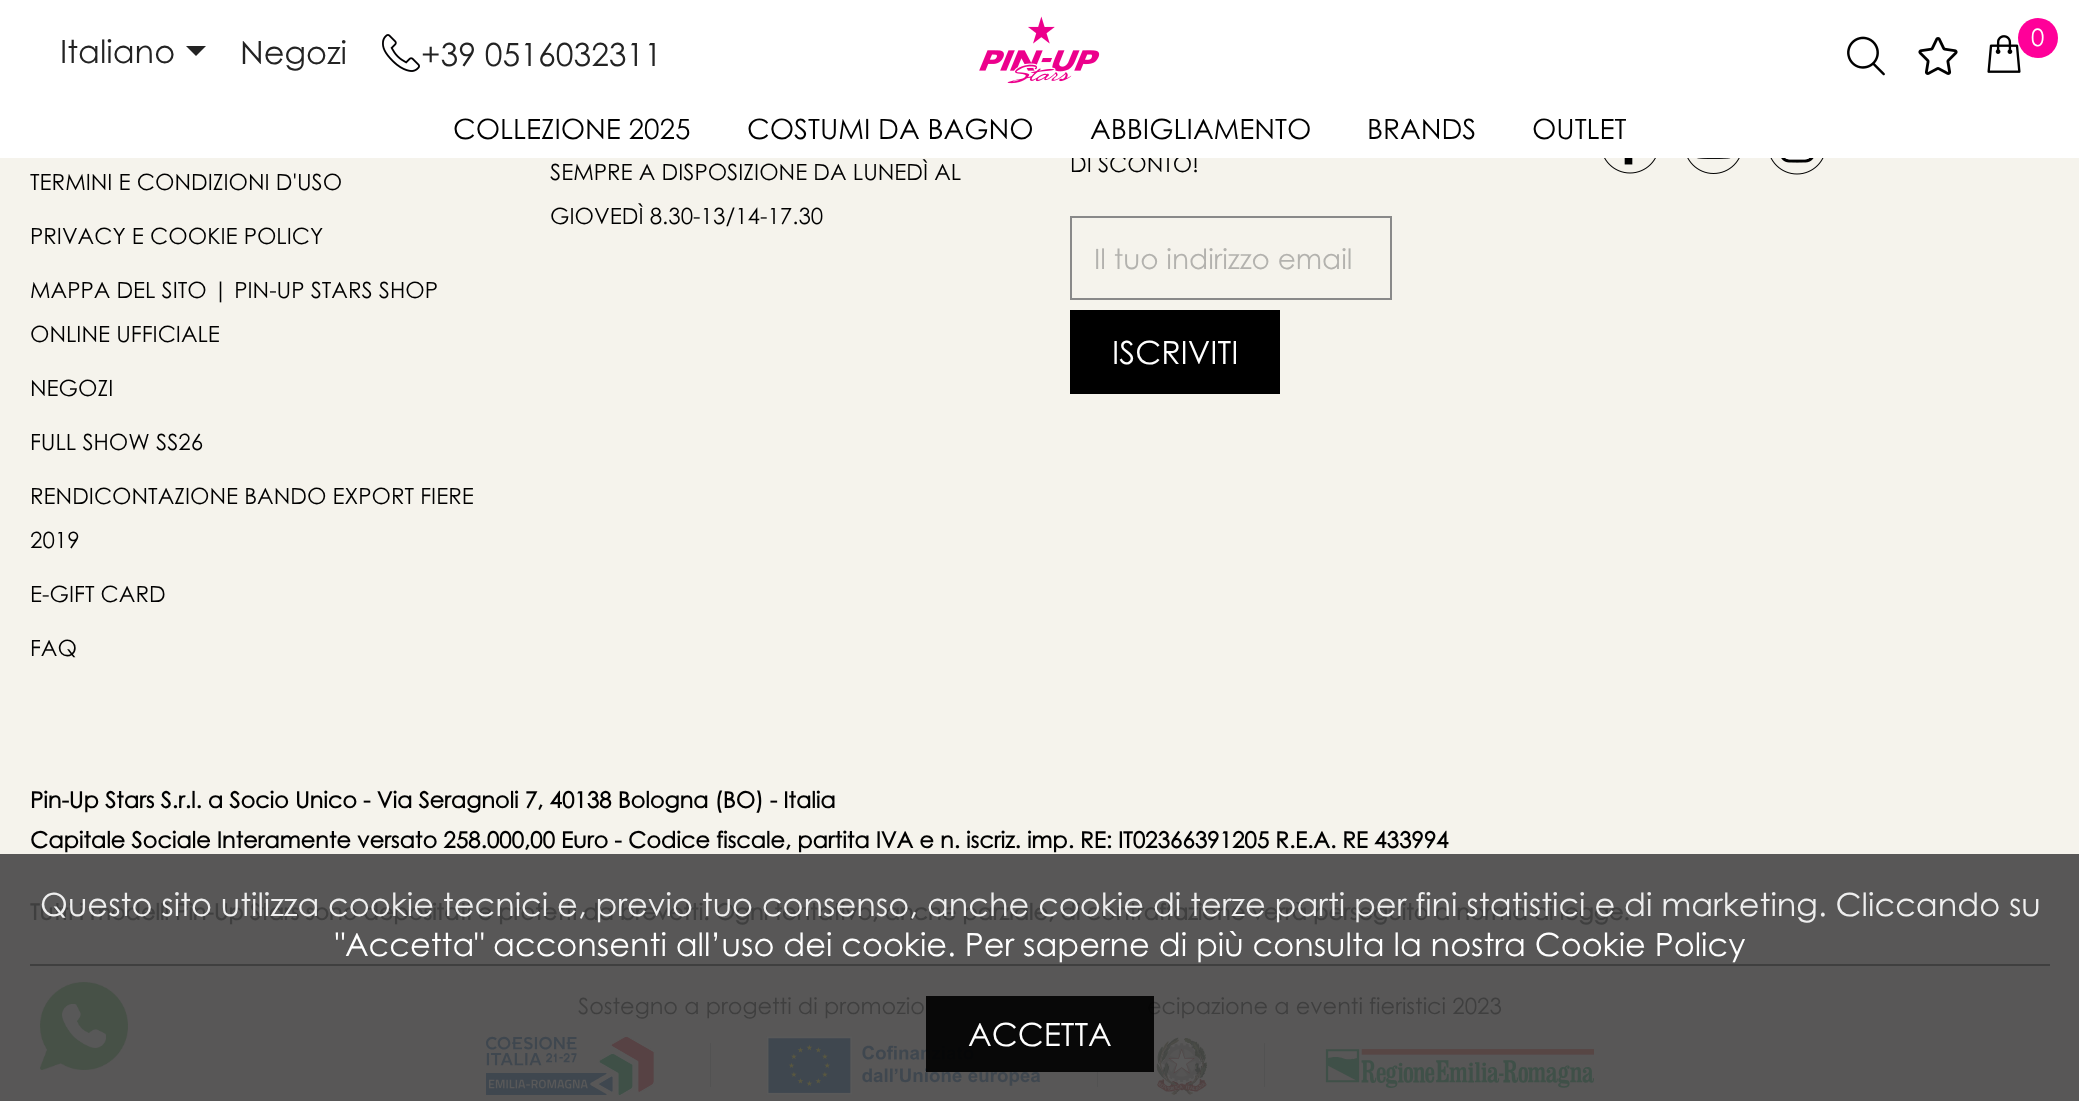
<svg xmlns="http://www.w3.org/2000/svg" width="2079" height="1101">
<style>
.a{font:22.4px Century Gothic;fill:#000}
.b{font:28px Century Gothic;fill:#000}
.c{font:24px Century Gothic;fill:#fff}
.d{font:32px Century Gothic;fill:#232323}
.e{font:28px Century Gothic;fill:#b3b2ae}
.f{font:32px Century Gothic;fill:#fff}
.g{font:bold 22.4px Century Gothic;fill:#000}
.h{font:bold 22.4px Century Gothic;fill:#3f3f3f}
.i{font:22.4px Century Gothic;fill:#3f3f3f}
.j{font:32px Century Gothic;fill:#eee}
</style>
<rect width="100%" height="100%" fill="#f5f3ec"/>
<path fill="#585757" d="M0 854h2079v247H0z"/>
<path fill="none" stroke="#898989" stroke-width="2" d="M1071 217h320v82H1071z"/>
<path fill="#000" d="M1070 310h210v84H1070z"/>
<image href="6.png" x="1604" y="158" width="52" height="16"/>
<image href="7.png" x="1687" y="158" width="53" height="16"/>
<image href="8.png" x="1770" y="158" width="54" height="17"/>
<path fill="#3f3f3f" d="M30 964h2020v2H30z"/>
<image href="9.png" x="486" y="1036" width="1108" height="60"/>
<image href="10.png" x="40" y="982" width="88" height="88"/>
<text class="a" x="30" y="190">TERMINI E CONDIZIONI D'USO</text>
<text class="a" x="30" y="244">PRIVACY E COOKIE POLICY</text>
<text class="a" x="30" y="298">MAPPA DEL SITO | PIN-UP STARS SHOP</text>
<text class="a" x="30" y="342">ONLINE UFFICIALE</text>
<text class="a" x="30" y="396">NEGOZI</text>
<text class="a" x="30" y="450">FULL SHOW SS26</text>
<text class="a" x="30" y="504">RENDICONTAZIONE BANDO EXPORT FIERE</text>
<text class="a" x="30" y="548">2019</text>
<text class="a" x="30" y="602">E-GIFT CARD</text>
<text class="a" x="30" y="656">FAQ</text>
<text class="a" x="550" y="180">SEMPRE A DISPOSIZIONE DA LUNEDÌ AL</text>
<text class="a" x="550" y="224">GIOVEDÌ 8.30-13/14-17.30</text>
<text class="a" x="1070" y="172">DI SCONTO!</text>
<path fill="#fff" d="M0 0h2079v158H0z"/>
<text class="b" x="1532" y="139">OUTLET</text>
<text class="b" x="1367" y="139">BRANDS</text>
<text class="b" x="1090" y="139">ABBIGLIAMENTO</text>
<text class="b" x="747" y="139">COSTUMI DA BAGNO</text>
<text class="b" x="453" y="139">COLLEZIONE 2025</text>
<image href="5.png" x="1987" y="35" width="34" height="38"/>
<circle fill="#f09" cx="2038" cy="38" r="20"/>
<text class="c" x="2031" y="46">0</text>
<image href="4.png" x="1918" y="37" width="40" height="38"/>
<image href="3.png" x="1847" y="36" width="38" height="40"/>
<image href="2.png" x="979" y="16" width="121" height="68"/>
<path fill="#232323" d="M186 46h20l-10 10z"/>
<text class="d" x="60" y="63">Italiano</text>
<text class="d" x="421" y="66">+39 0516032311</text>
<image href="1.png" x="382" y="34" width="38" height="38"/>
<text class="d" x="240" y="64">Negozi</text>
<text class="e" x="1094" y="269">Il tuo indirizzo email</text>
<text class="f" x="1112" y="364">ISCRIVITI</text>
<text class="g" x="30" y="808">Pin-Up Stars S.r.l. a Socio Unico - Via Seragnoli 7, 40138 Bologna (BO) - Italia</text>
<text class="g" x="30" y="848">Capitale Sociale Interamente versato 258.000,00 Euro - Codice fiscale, partita IVA e n. iscriz. imp. RE: IT02366391205 R.E.A. RE 433994</text>
<text class="h" x="30" y="920">Tutti i modelli Pin-Up Stars sono depositati e protetti da brevetti. Ogni tentativo, anche parziale, di contraffazione verrà perseguito a norma di legge.</text>
<text class="i" x="578" y="1014">Sostegno a progetti di promozio</text>
<text class="i" x="1147" y="1014">ecipazione a eventi fieristici 2023</text>
<text class="j" x="40" y="916">Questo sito utilizza cookie tecnici e, previo tuo consenso, anche cookie di terze parti per fini statistici e di marketing. Cliccando su</text>
<text class="f" x="335" y="956">"Accetta" acconsenti all’uso dei cookie. Per saperne di più consulta la nostra Cookie Policy</text>
<path fill="#000000e6" d="M926 996h228v76H926z"/>
<text class="f" x="968" y="1046">ACCETTA</text>
</svg>
